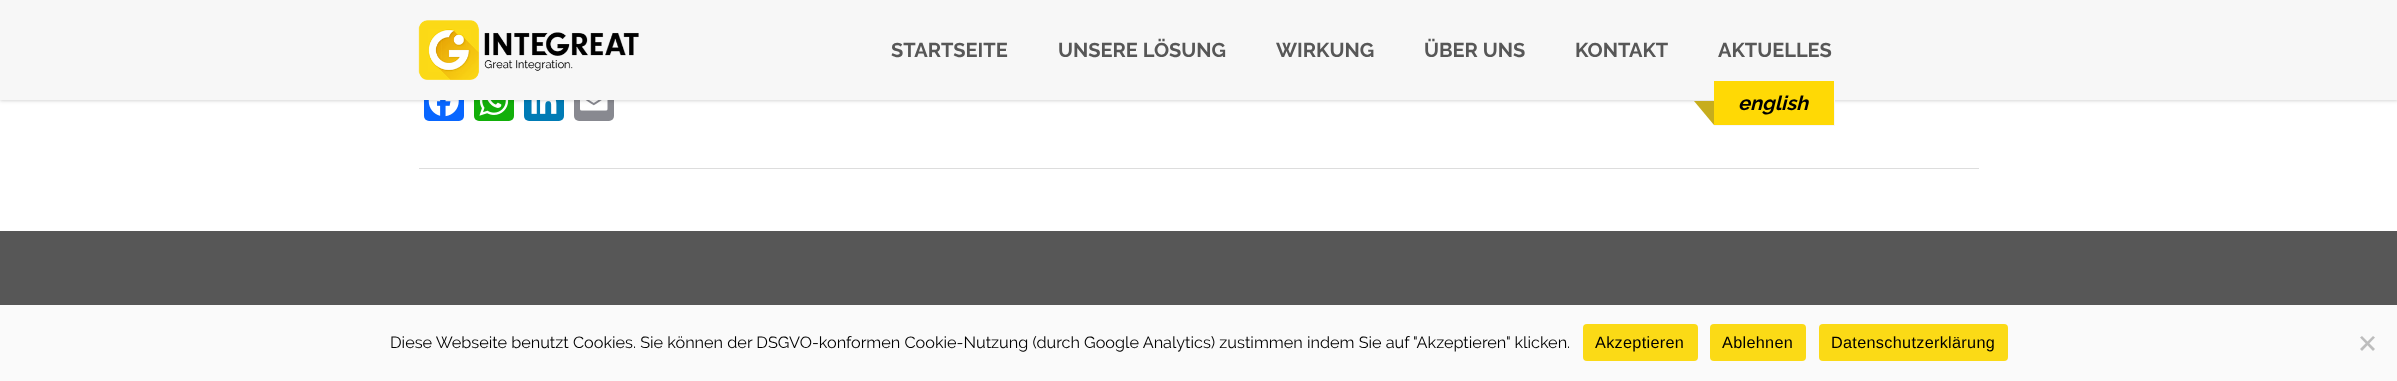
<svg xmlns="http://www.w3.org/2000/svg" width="2397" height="381">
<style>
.a{font:bold 20px Raleway;fill:#575757}
.b{font:italic bold 20px Raleway;fill:#000}
.c{font:16.25px Raleway;fill:#000}
.d{font:16.25px Liberation Sans;letter-spacing:0.3px;fill:#000}
</style>
<rect width="100%" height="100%" fill="#fff"/>
<rect fill="#0866ff" x="424" y="81" width="40" height="40" rx="5"/>
<image href="2.png" x="428" y="100" width="31" height="17"/>
<rect fill="#12af0a" x="474" y="81" width="40" height="40" rx="5"/>
<image href="3.png" x="479" y="100" width="30" height="16"/>
<rect fill="#007bb5" x="524" y="81" width="40" height="40" rx="5"/>
<image href="4.png" x="531" y="100" width="26" height="14"/>
<rect fill="#888990" x="574" y="81" width="40" height="40" rx="5"/>
<image href="5.png" x="580" y="100" width="28" height="11"/>
<path fill="#0000000f" filter="blur(1px)" d="M0 1h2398v100H0z"/>
<path fill="#0000001a" filter="blur(2px)" d="M0 1h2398v100H0z"/>
<path fill="#f7f7f7" d="M0 0h2397v100H0z"/>
<image href="1.png" x="418" y="20" width="221" height="60"/>
<path fill="#ffd905" d="M1714 81h120v44H1714z"/>
<path fill="#f7f7f7" d="M1834 100h1v26H1834z"/>
<path fill="#f7f7f7" d="M1714 125h121v1H1714z"/>
<path fill="#c7ad1d" d="M1714 101v24l-20-24z"/>
<path fill="#ddd" d="M419 168h1560v1H419z"/>
<path fill="#575757" d="M0 231h2397v74H0z"/>
<path fill="#fafafa" d="M0 305h2397v76H0z"/>
<rect fill="#fbda16" x="1583" y="324" width="115" height="37" rx="4"/>
<rect fill="#fbda16" x="1710" y="324" width="96" height="37" rx="4"/>
<rect fill="#fbda16" x="1819" y="324" width="189" height="37" rx="4"/>
<path fill="#bdbdbd" d="M2373 336l2 1.5l-13 13.5l-2-2z"/>
<path fill="#bdbdbd" d="M2360 337.5l2-1.5l13 13l-2 2z"/>
<text class="a" x="891" y="57">STARTSEITE</text>
<text class="a" x="1058" y="57">UNSERE LÖSUNG</text>
<text class="a" x="1276" y="57">WIRKUNG</text>
<text class="a" x="1424" y="57">ÜBER UNS</text>
<text class="a" x="1575" y="57">KONTAKT</text>
<text class="a" x="1718" y="57">AKTUELLES</text>
<text class="b" x="1738" y="110">english</text>
<text class="c" x="390" y="348">Diese Webseite benutzt Cookies. Sie können der DSGVO-konformen Cookie-Nutzung (durch Google Analytics) zustimmen indem Sie auf "Akzeptieren" klicken.</text>
<text class="d" x="1595" y="348">Akzeptieren</text>
<text class="d" x="1722" y="348">Ablehnen</text>
<text class="d" x="1831" y="348">Datenschutzerklärung</text>
</svg>
